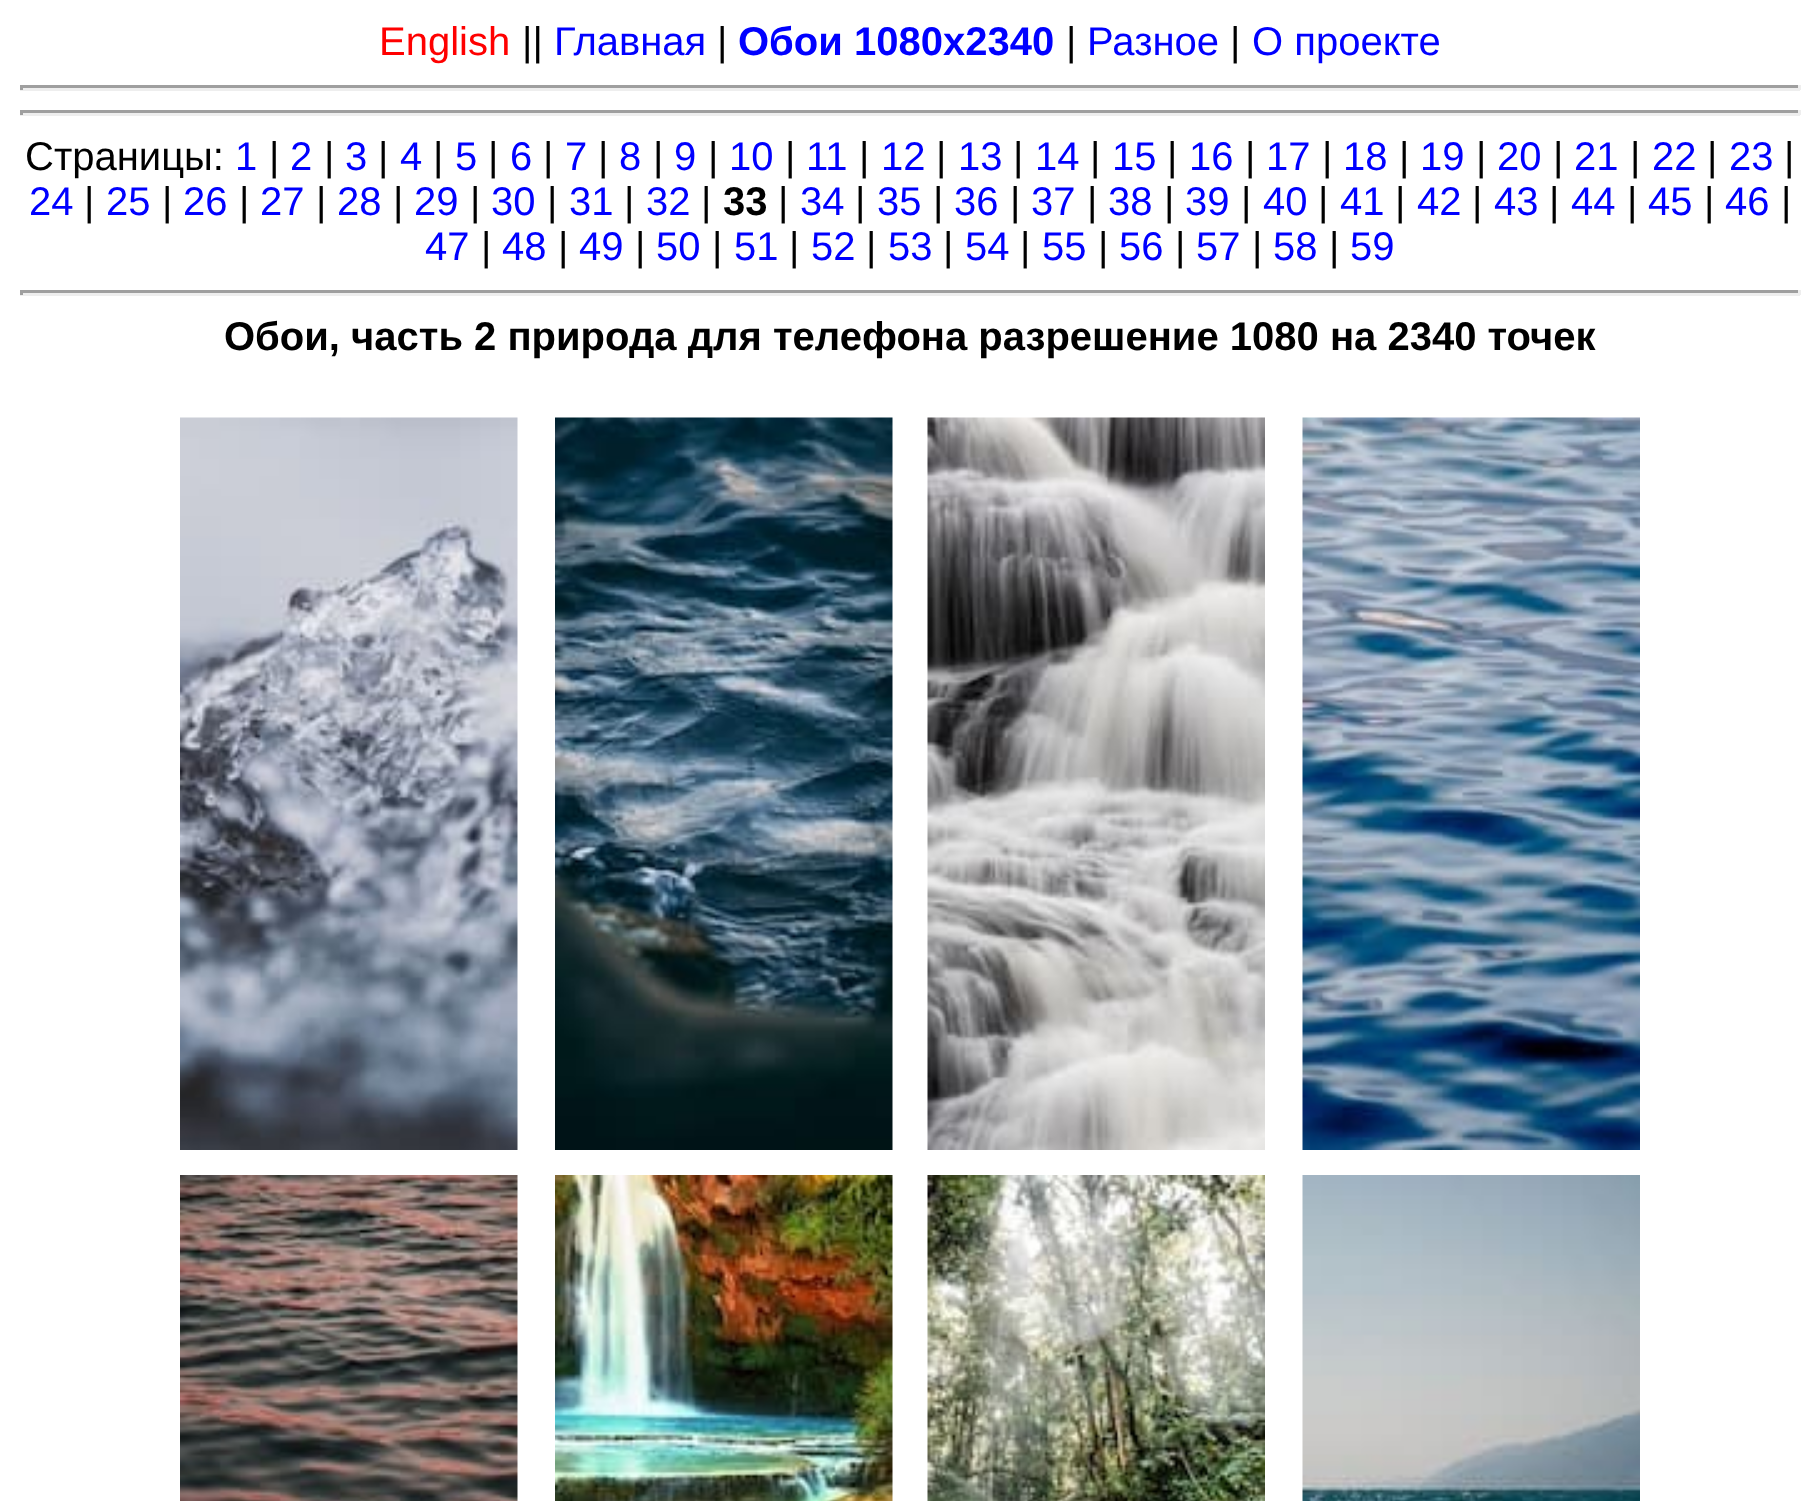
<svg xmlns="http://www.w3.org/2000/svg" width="1820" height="1501">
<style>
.a{font:40px Liberation Sans;fill:#f00}
.b{font:40px Liberation Sans;fill:#000}
.c{font:40px Liberation Sans;fill:#00f}
.d{font:bold 40px Liberation Sans;fill:#00f}
.e{font:bold 40px Liberation Sans;fill:#000}
</style>
<rect width="100%" height="100%" fill="#fff"/>
<path fill="#9f9f9f" d="M20 85h1780v3H20z"/>
<path fill="#eee" d="M1798 85h3v5H1798z"/>
<path fill="#eee" d="M20 88h1780v3H20z"/>
<path fill="#9f9f9f" d="M20 85h3v5H20z"/>
<path fill="#9f9f9f" d="M20 110h1780v3H20z"/>
<path fill="#eee" d="M1798 110h3v5H1798z"/>
<path fill="#eee" d="M20 113h1780v3H20z"/>
<path fill="#9f9f9f" d="M20 110h3v5H20z"/>
<path fill="#9f9f9f" d="M20 290h1780v3H20z"/>
<path fill="#eee" d="M1798 290h3v5H1798z"/>
<path fill="#eee" d="M20 293h1780v3H20z"/>
<path fill="#9f9f9f" d="M20 290h3v5H20z"/>
<image href="1.png" x="180" y="417" width="338" height="733"/>
<image href="2.png" x="555" y="417" width="338" height="733"/>
<image href="3.png" x="927" y="417" width="338" height="733"/>
<image href="4.png" x="1302" y="417" width="338" height="733"/>
<image href="5.png" x="180" y="1175" width="338" height="326"/>
<image href="6.png" x="555" y="1175" width="338" height="326"/>
<image href="7.png" x="927" y="1175" width="338" height="326"/>
<image href="8.png" x="1302" y="1175" width="338" height="326"/>
<text class="a" x="379" y="55">English</text>
<text class="b" x="522" y="55">||</text>
<text class="c" x="554" y="55">Главная</text>
<text class="b" x="717" y="55">|</text>
<text class="d" x="738" y="55">Обои 1080x2340</text>
<text class="b" x="1066" y="55">|</text>
<text class="c" x="1087" y="55">Разное</text>
<text class="b" x="1230" y="55">|</text>
<text class="c" x="1252" y="55">О проекте</text>
<text class="b" x="25" y="170">Страницы:</text>
<text class="c" x="235" y="170">1</text>
<text class="b" x="269" y="170">|</text>
<text class="c" x="290" y="170">2</text>
<text class="b" x="324" y="170">|</text>
<text class="c" x="345" y="170">3</text>
<text class="b" x="378" y="170">|</text>
<text class="c" x="400" y="170">4</text>
<text class="b" x="433" y="170">|</text>
<text class="c" x="455" y="170">5</text>
<text class="b" x="488" y="170">|</text>
<text class="c" x="510" y="170">6</text>
<text class="b" x="543" y="170">|</text>
<text class="c" x="565" y="170">7</text>
<text class="b" x="598" y="170">|</text>
<text class="c" x="619" y="170">8</text>
<text class="b" x="653" y="170">|</text>
<text class="c" x="674" y="170">9</text>
<text class="b" x="708" y="170">|</text>
<text class="c" x="729" y="170">10</text>
<text class="b" x="785" y="170">|</text>
<text class="c" x="806" y="170">11</text>
<text class="b" x="859" y="170">|</text>
<text class="c" x="881" y="170">12</text>
<text class="b" x="936" y="170">|</text>
<text class="c" x="958" y="170">13</text>
<text class="b" x="1013" y="170">|</text>
<text class="c" x="1035" y="170">14</text>
<text class="b" x="1090" y="170">|</text>
<text class="c" x="1112" y="170">15</text>
<text class="b" x="1167" y="170">|</text>
<text class="c" x="1189" y="170">16</text>
<text class="b" x="1245" y="170">|</text>
<text class="c" x="1266" y="170">17</text>
<text class="b" x="1322" y="170">|</text>
<text class="c" x="1343" y="170">18</text>
<text class="b" x="1399" y="170">|</text>
<text class="c" x="1420" y="170">19</text>
<text class="b" x="1476" y="170">|</text>
<text class="c" x="1497" y="170">20</text>
<text class="b" x="1553" y="170">|</text>
<text class="c" x="1574" y="170">21</text>
<text class="b" x="1630" y="170">|</text>
<text class="c" x="1652" y="170">22</text>
<text class="b" x="1707" y="170">|</text>
<text class="c" x="1729" y="170">23</text>
<text class="b" x="1784" y="170">|</text>
<text class="c" x="29" y="215">24</text>
<text class="b" x="84" y="215">|</text>
<text class="c" x="106" y="215">25</text>
<text class="b" x="162" y="215">|</text>
<text class="c" x="183" y="215">26</text>
<text class="b" x="239" y="215">|</text>
<text class="c" x="260" y="215">27</text>
<text class="b" x="316" y="215">|</text>
<text class="c" x="337" y="215">28</text>
<text class="b" x="393" y="215">|</text>
<text class="c" x="414" y="215">29</text>
<text class="b" x="470" y="215">|</text>
<text class="c" x="491" y="215">30</text>
<text class="b" x="547" y="215">|</text>
<text class="c" x="569" y="215">31</text>
<text class="b" x="624" y="215">|</text>
<text class="c" x="646" y="215">32</text>
<text class="b" x="701" y="215">|</text>
<text class="e" x="723" y="215">33</text>
<text class="b" x="778" y="215">|</text>
<text class="c" x="800" y="215">34</text>
<text class="b" x="855" y="215">|</text>
<text class="c" x="877" y="215">35</text>
<text class="b" x="933" y="215">|</text>
<text class="c" x="954" y="215">36</text>
<text class="b" x="1010" y="215">|</text>
<text class="c" x="1031" y="215">37</text>
<text class="b" x="1087" y="215">|</text>
<text class="c" x="1108" y="215">38</text>
<text class="b" x="1164" y="215">|</text>
<text class="c" x="1185" y="215">39</text>
<text class="b" x="1241" y="215">|</text>
<text class="c" x="1263" y="215">40</text>
<text class="b" x="1318" y="215">|</text>
<text class="c" x="1340" y="215">41</text>
<text class="b" x="1395" y="215">|</text>
<text class="c" x="1417" y="215">42</text>
<text class="b" x="1472" y="215">|</text>
<text class="c" x="1494" y="215">43</text>
<text class="b" x="1549" y="215">|</text>
<text class="c" x="1571" y="215">44</text>
<text class="b" x="1627" y="215">|</text>
<text class="c" x="1648" y="215">45</text>
<text class="b" x="1704" y="215">|</text>
<text class="c" x="1725" y="215">46</text>
<text class="b" x="1781" y="215">|</text>
<text class="c" x="425" y="260">47</text>
<text class="b" x="481" y="260">|</text>
<text class="c" x="502" y="260">48</text>
<text class="b" x="558" y="260">|</text>
<text class="c" x="579" y="260">49</text>
<text class="b" x="635" y="260">|</text>
<text class="c" x="656" y="260">50</text>
<text class="b" x="712" y="260">|</text>
<text class="c" x="734" y="260">51</text>
<text class="b" x="789" y="260">|</text>
<text class="c" x="811" y="260">52</text>
<text class="b" x="866" y="260">|</text>
<text class="c" x="888" y="260">53</text>
<text class="b" x="943" y="260">|</text>
<text class="c" x="965" y="260">54</text>
<text class="b" x="1020" y="260">|</text>
<text class="c" x="1042" y="260">55</text>
<text class="b" x="1098" y="260">|</text>
<text class="c" x="1119" y="260">56</text>
<text class="b" x="1175" y="260">|</text>
<text class="c" x="1196" y="260">57</text>
<text class="b" x="1252" y="260">|</text>
<text class="c" x="1273" y="260">58</text>
<text class="b" x="1329" y="260">|</text>
<text class="c" x="1350" y="260">59</text>
<text class="e" x="224" y="350">Обои, часть 2 природа для телефона разрешение 1080 на 2340 точек</text>
</svg>
